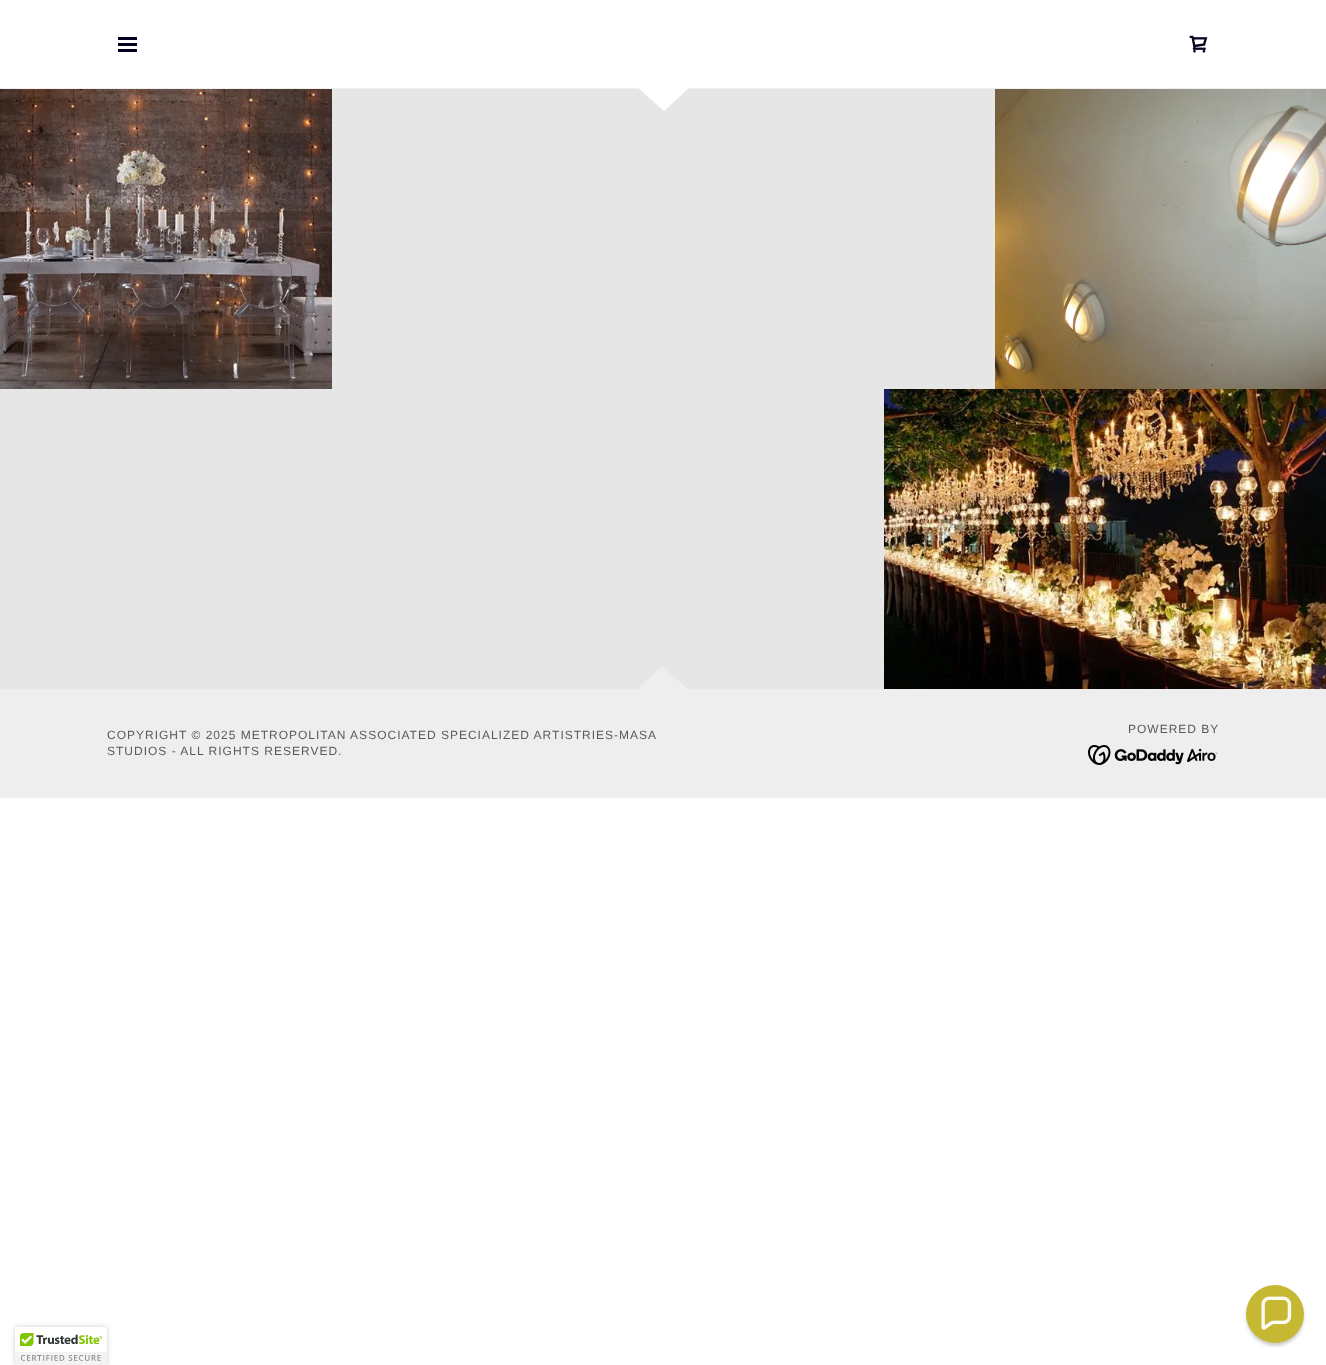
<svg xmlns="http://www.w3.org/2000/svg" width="1326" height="1365">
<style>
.a{font:12px Liberation Sans;letter-spacing:1px;fill:#595959}
</style>
<rect width="100%" height="100%" fill="#fff"/>
<path fill="#efefef" d="M0 88h1326v1H0z"/>
<path fill="#030221" d="M118 37h19v3H118z"/>
<path fill="#030221" d="M118 43h19v3H118z"/>
<path fill="#030221" d="M118 49h19v3H118z"/>
<image href="1.png" x="1189" y="35" width="19" height="18"/>
<path fill="#e6e6e6" d="M332 89h663v300H332z"/>
<path fill="#fff" fill-rule="evenodd" d="M664 111l26-24h-53z"/>
<image href="2.png" x="0" y="89" width="332" height="300"/>
<image href="3.png" x="995" y="89" width="331" height="300"/>
<path fill="#e6e6e6" d="M0 389h884v300H0z"/>
<image href="4.png" x="884" y="389" width="442" height="300"/>
<path fill="#eee" d="M0 689h1326v109H0z"/>
<path fill="#eee" fill-rule="evenodd" d="M662 666l-26 24h53z"/>
<image href="5.png" x="1088" y="745" width="130" height="20"/>
<rect fill="#00000033" filter="blur(2.5px)" x="15" y="1327" width="92" height="38" rx="2"/>
<path fill="#fff" d="M17 1327h88c1 0 2 1 2 2v36h-92v-36c0-1 1-2 2-2z"/>
<image href="6.png" x="15" y="1333" width="92" height="32"/>
<rect fill="#0d0d0d33" filter="blur(1.5px)" x="1246" y="1288" width="58" height="58" rx="29"/>
<circle fill="#c7b834" cx="1275" cy="1314" r="29"/>
<image href="7.png" x="1261" y="1296" width="31" height="34"/>
<text class="a" x="1128" y="733">POWERED BY</text>
<text class="a" x="107" y="739">COPYRIGHT © 2025 METROPOLITAN ASSOCIATED SPECIALIZED ARTISTRIES-MASA</text>
<text class="a" x="107" y="755">STUDIOS - ALL RIGHTS RESERVED.</text>
</svg>
